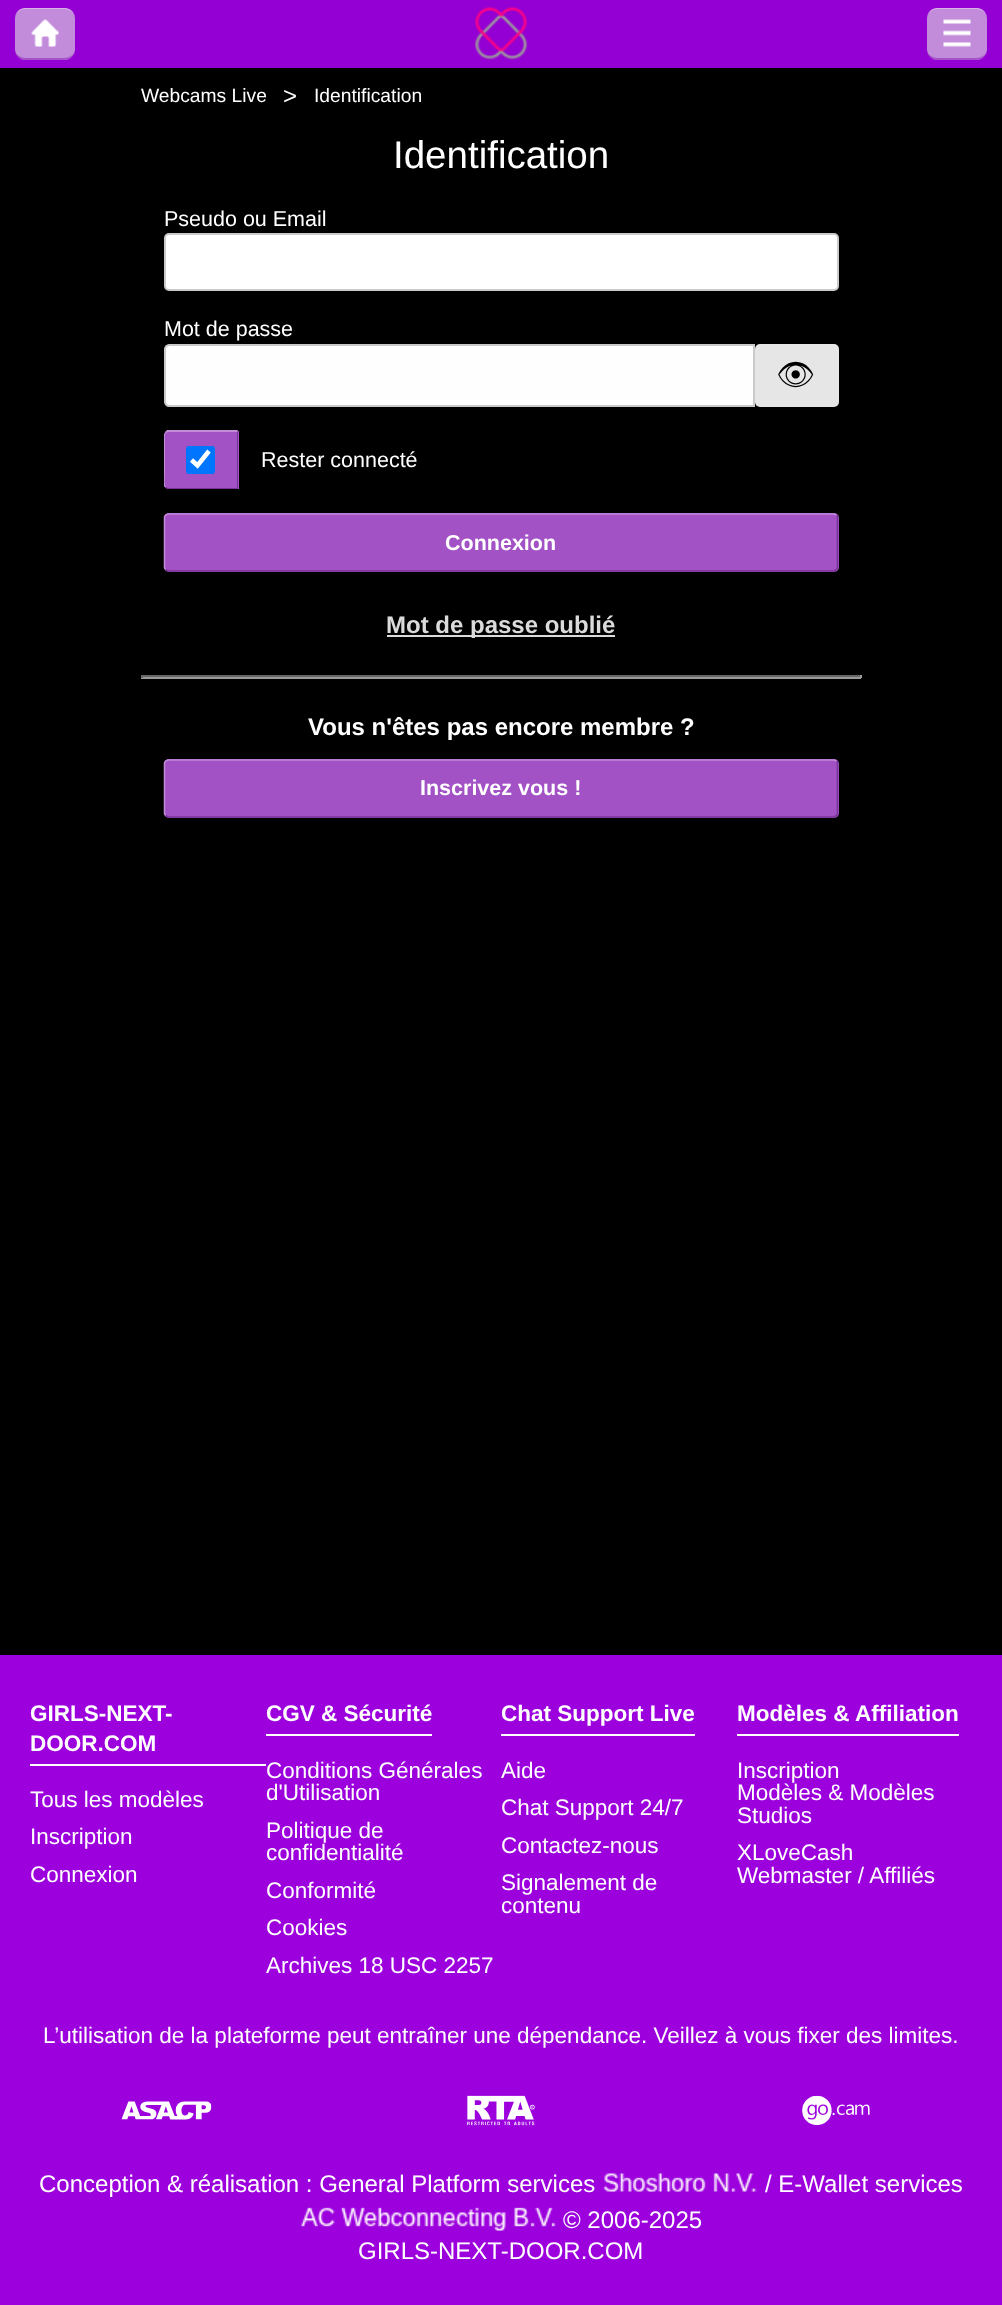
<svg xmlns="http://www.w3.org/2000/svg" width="1002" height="2305">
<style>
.a{font:19.25px Liberation Sans;fill:#fff}
.b{font:24px Liberation Sans;fill:#fff}
.c{font:38.5px Liberation Sans;fill:#fff}
.d{font:21.5px Liberation Sans;fill:#fff}
.e{font:31px Noto Emoji;fill:#000}
.f{font:bold 21.5px Liberation Sans;fill:#fff}
.g{font:bold 24px Liberation Sans;fill:#dbdbdb}
.h{font:bold 24px Liberation Sans;fill:#fff}
.i{font:bold 22.5px Liberation Sans;fill:#fff}
.j{font:22.5px Liberation Sans;fill:#fff}
</style>
<rect width="100%" height="100%" fill="#000"/>
<path fill="#9400d3" d="M0 0h1002v68H0z"/>
<rect fill="#c28cda" x="15" y="8" width="60" height="52" rx="11"/>
<path fill="#d6b3e6" d="M26 8c-6 0-11 4-11 10c0-5 5-9 11-9h38c6 0 11 4 11 9c0-6-5-10-11-10z"/>
<path fill="#a352c7" d="M64 60c6 0 11-5 11-10c0 4-5 8-11 8h-38c-6 0-11-4-11-8c0 5 5 10 11 10z"/>
<image href="1.png" x="31" y="19" width="28" height="28"/>
<image href="2.png" x="475" y="7" width="53" height="53"/>
<rect fill="#c28cda" x="927" y="8" width="60" height="52" rx="11"/>
<path fill="#d6b3e6" d="M938 8c-6 0-11 4-11 10c0-5 5-9 11-9h38c6 0 11 4 11 9c0-6-5-10-11-10z"/>
<path fill="#a352c7" d="M976 60c6 0 11-5 11-10c0 4-5 8-11 8h-38c-6 0-11-4-11-8c0 5 5 10 11 10z"/>
<image href="3.png" x="943" y="19" width="28" height="28"/>
<rect fill="#fff" stroke="#cacaca" stroke-width="2" x="165" y="234" width="673" height="56" rx="4"/>
<path fill="#fefefe" stroke="#cacaca" stroke-width="2" d="M169 345h585v61h-585c-2 0-4-2-4-4v-53c0-2 2-4 4-4z"/>
<rect fill="#e6e6e6" x="755" y="344" width="84" height="63" rx="5"/>
<path fill="#a252c5" d="M169 431h70v58h-70c-3 0-5-2-5-5v-48c0-3 2-5 5-5z"/>
<path fill="#c18bd8" d="M168 432l-2 1l-1-1l2-2h71l-1 2z"/>
<path fill="#793398" d="M238 431v57h-1v-56z"/>
<path fill="#793398" d="M168 489h70v-1h-1h-69l-2-1h-1c1 1 2 2 3 2z"/>
<path fill="#c18bd8" d="M165 487c-1 0-1-2-1-3v-49l1-3l1 1l-1 2v41c0 1-1 8 1 11z"/>
<rect fill="#0075ff" x="186" y="446" width="29" height="28" rx="3"/>
<path fill="none" stroke="#fff" stroke-width="4.6" d="M191.5 460l6 5.5l11.5-14.5"/>
<rect fill="#a252c5" x="164" y="513" width="675" height="59" rx="5"/>
<path fill="none" stroke="#793398" stroke-width="1.5" d="M836.5 515l1 2v50.5l-1 2l-2.5 1.5h-666l-2.5-1.5"/>
<path fill="none" stroke="#c18bd8" stroke-width="1.5" d="M165.5 569.5l-1-2v-50.5l1-2l2.5-1h666l2.5 1"/>
<path fill="#dbdbdb" d="M387 635h228v2H387z"/>
<path fill="#666" d="M141 675h720v2H141z"/>
<path fill="#999" d="M860 675h2v3H860z"/>
<path fill="#999" d="M141 677h720v2H141z"/>
<path fill="#666" d="M141 675h2v3H141z"/>
<rect fill="#a252c5" x="164" y="759" width="675" height="59" rx="5"/>
<path fill="none" stroke="#793398" stroke-width="1.5" d="M836.5 761l1 2v50.5l-1 2l-2.5 1.5h-666l-2.5-1.5"/>
<path fill="none" stroke="#c18bd8" stroke-width="1.5" d="M165.5 815.5l-1-2v-50.5l1-2l2.5-1h666l2.5 1"/>
<path fill="#9b00dd" d="M0 1655h1002v650H0z"/>
<path fill="#fff" d="M30 1764h236v2H30z"/>
<path fill="#fff" d="M266 1734h166v2H266z"/>
<path fill="#fff" d="M501 1734h194v2H501z"/>
<path fill="#fff" d="M737 1734h222v2H737z"/>
<image href="4.png" x="121" y="2101" width="91" height="19"/>
<image href="5.png" x="467" y="2095" width="68" height="31"/>
<image href="6.png" x="802" y="2095" width="68" height="31"/>
<image href="7.png" x="603" y="2173" width="154" height="19"/>
<image href="8.png" x="301" y="2207" width="255" height="24"/>
<text class="a" x="141" y="102">Webcams Live</text>
<text class="b" x="283" y="104">&gt;</text>
<text class="a" x="314" y="102">Identification</text>
<text class="c" x="393" y="168">Identification</text>
<text class="d" x="164" y="226">Pseudo ou Email</text>
<text class="d" x="164" y="336">Mot de passe</text>
<text class="e" x="776" y="385">👁</text>
<text class="d" x="261" y="467">Rester connecté</text>
<text class="f" x="445" y="550">Connexion</text>
<text class="g" x="386" y="633">Mot de passe oublié</text>
<text class="h" x="308" y="735">Vous n'êtes pas encore membre ?</text>
<text class="f" x="420" y="795">Inscrivez vous !</text>
<text class="i" x="30" y="1721">GIRLS-NEXT-</text>
<text class="i" x="30" y="1751">DOOR.COM</text>
<text class="j" x="30" y="1807">Tous les modèles</text>
<text class="j" x="30" y="1844">Inscription</text>
<text class="j" x="30" y="1882">Connexion</text>
<text class="i" x="266" y="1721">CGV &amp; Sécurité</text>
<text class="j" x="266" y="1778">Conditions Générales</text>
<text class="j" x="266" y="1800">d'Utilisation</text>
<text class="j" x="266" y="1838">Politique de</text>
<text class="j" x="266" y="1860">confidentialité</text>
<text class="j" x="266" y="1898">Conformité</text>
<text class="j" x="266" y="1935">Cookies</text>
<text class="j" x="266" y="1973">Archives 18 USC 2257</text>
<text class="i" x="501" y="1721">Chat Support Live</text>
<text class="j" x="501" y="1778">Aide</text>
<text class="j" x="501" y="1815">Chat Support 24/7</text>
<text class="j" x="501" y="1853">Contactez-nous</text>
<text class="j" x="501" y="1890">Signalement de</text>
<text class="j" x="501" y="1913">contenu</text>
<text class="i" x="737" y="1721">Modèles &amp; Affiliation</text>
<text class="j" x="737" y="1778">Inscription</text>
<text class="j" x="737" y="1800">Modèles &amp; Modèles</text>
<text class="j" x="737" y="1823">Studios</text>
<text class="j" x="737" y="1860">XLoveCash</text>
<text class="j" x="737" y="1883">Webmaster / Affiliés</text>
<text class="j" x="43" y="2043">L’utilisation de la plateforme peut entraîner une dépendance. Veillez à vous fixer des limites.</text>
<text class="b" x="39" y="2192">Conception &amp; réalisation : General Platform services</text>
<text class="b" x="765" y="2192">/ E-Wallet services</text>
<text class="b" x="563" y="2228">© 2006-2025</text>
<text class="b" x="358" y="2259">GIRLS-NEXT-DOOR.COM</text>
</svg>
